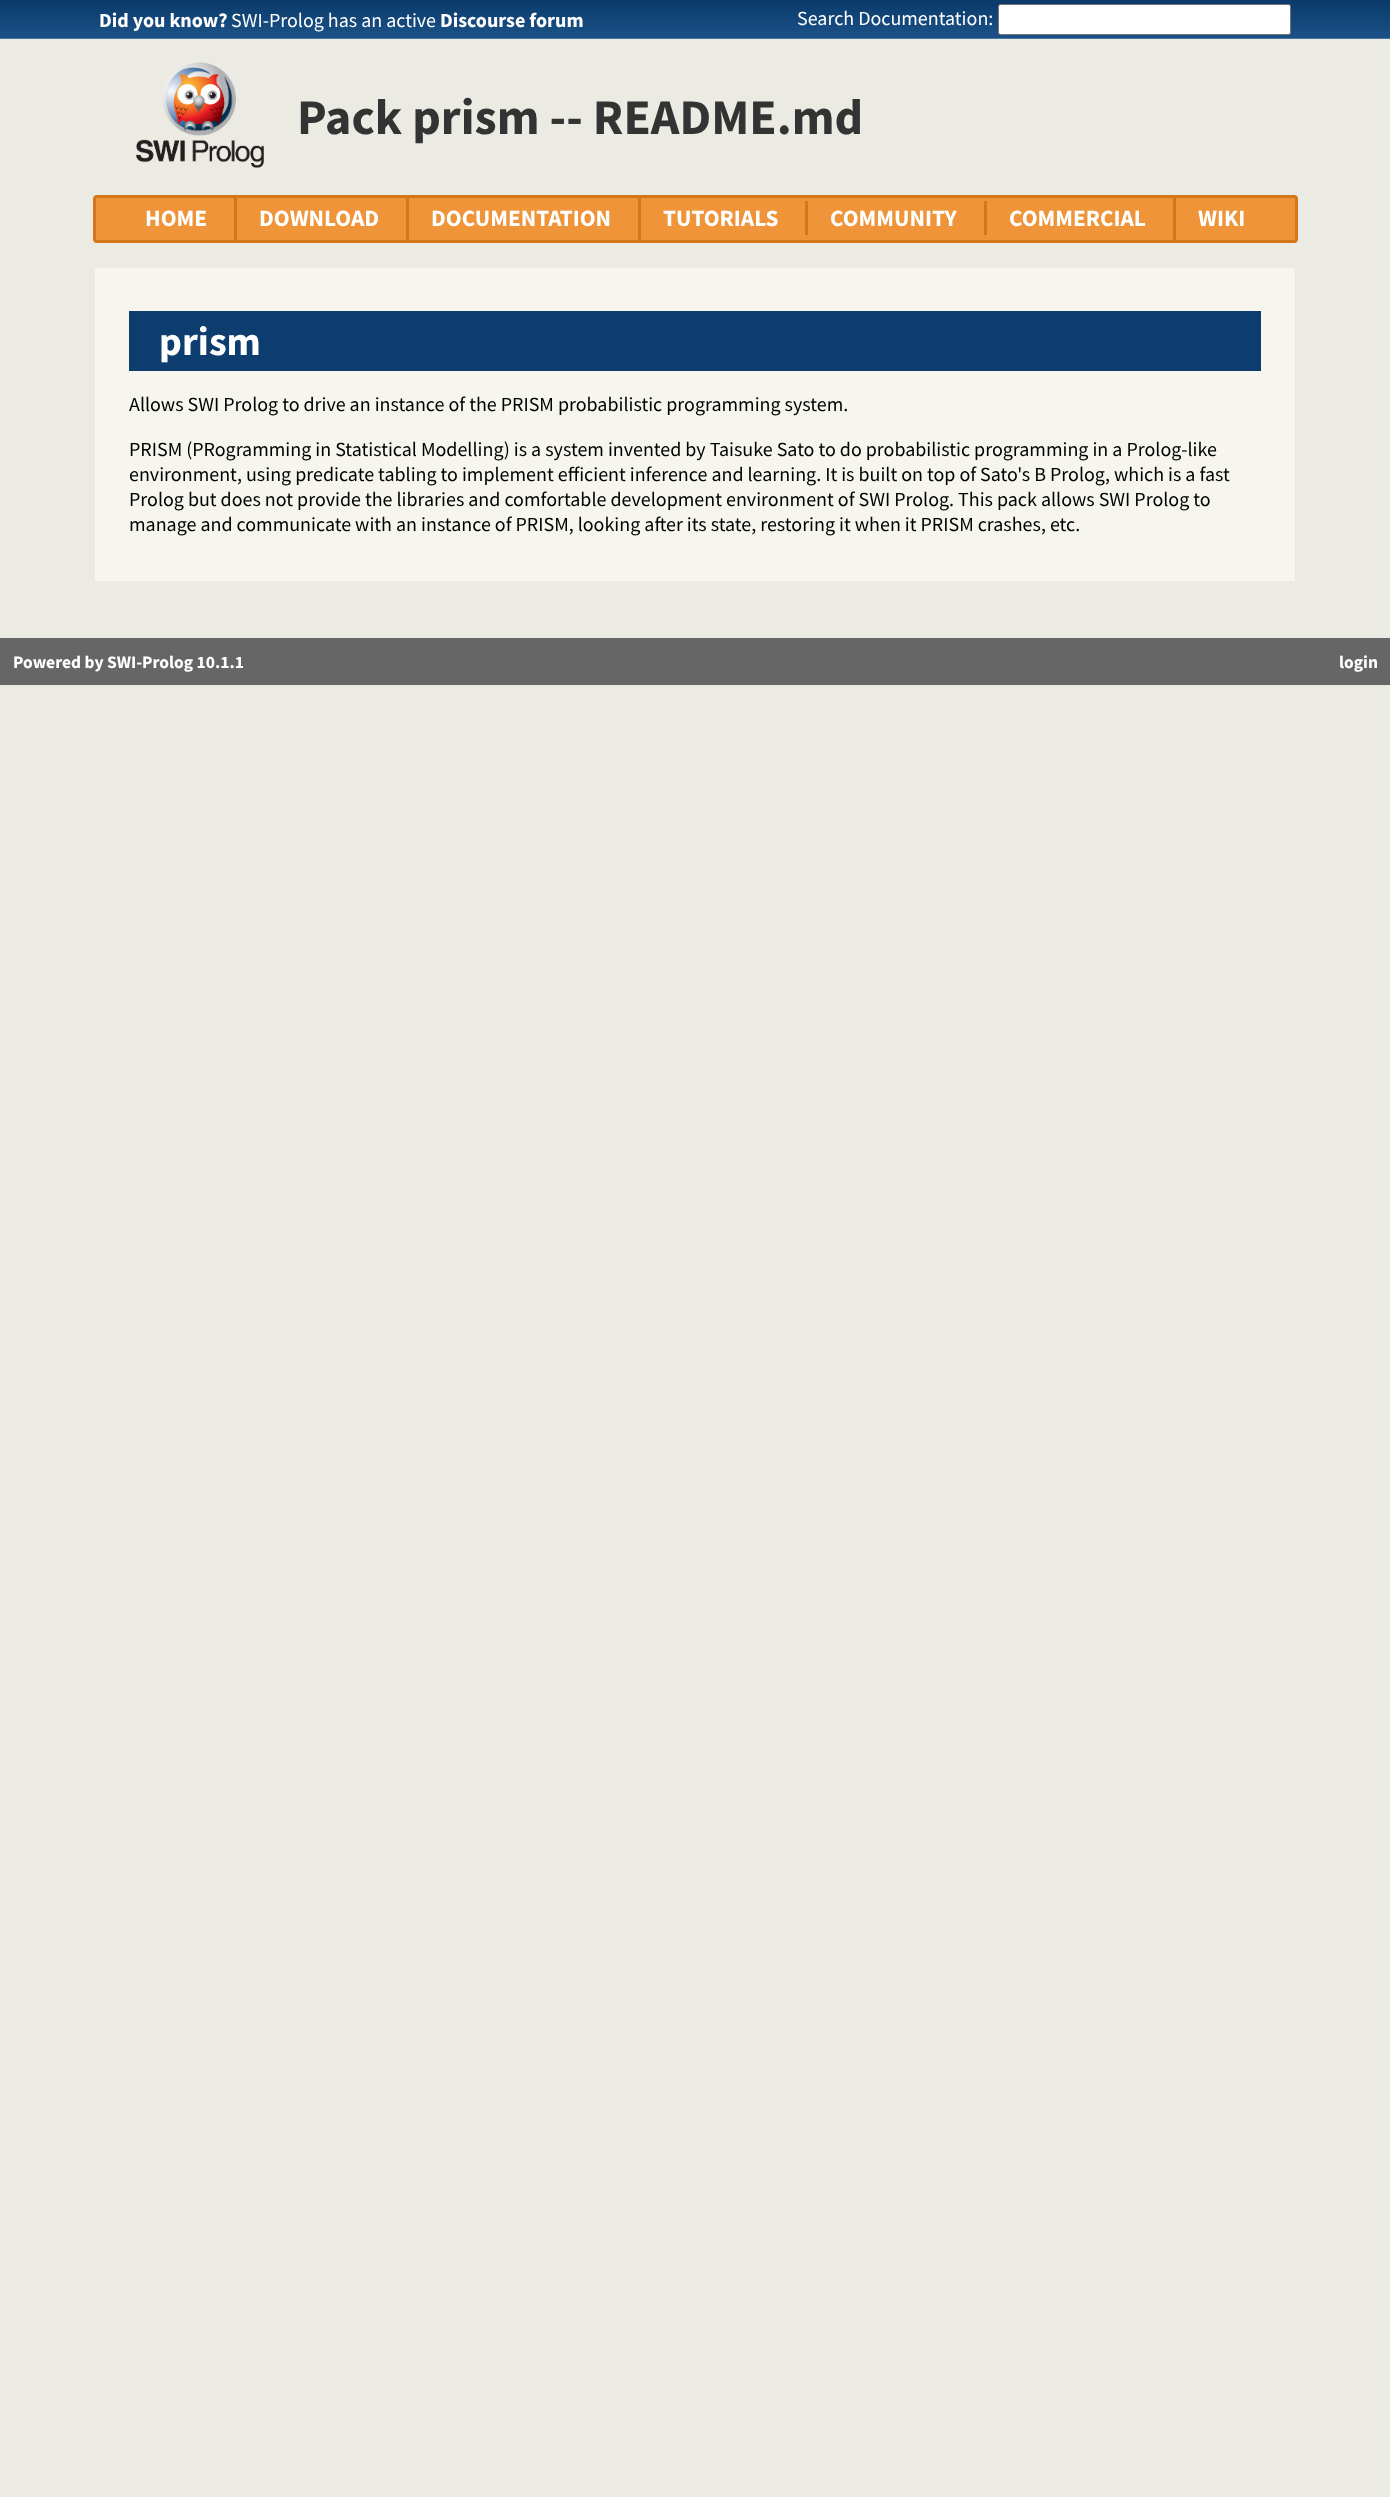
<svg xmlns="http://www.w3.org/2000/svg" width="1390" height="2497">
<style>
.a{font:bold 20px Source Sans Pro;fill:#fff}
.b{font:20px Source Sans Pro;fill:#fff}
.c{font:bold 50px Source Sans Pro;fill:#333}
.d{font:bold 23.25px Source Sans Pro;fill:#fff}
.e{font:bold 40px Source Sans Pro;fill:#fff}
.f{font:20px Source Sans Pro;fill:#000}
.g{font:bold 17.5px Source Sans Pro;fill:#fff}
</style>
<rect width="100%" height="100%" fill="#ecebe3"/>
<image href="1.png" x="0" y="0" width="1390" height="39"/>
<rect fill="#fff" stroke="#767676" x="998.5" y="4.5" width="292" height="30" rx="2"/>
<image href="2.png" x="136" y="62" width="128" height="106"/>
<rect fill="#ef9439" stroke="#d57719" stroke-width="3" x="94.5" y="196.5" width="1202" height="45" rx="2.5"/>
<path fill="#d57719" d="M234 198h3v42H234z"/>
<path fill="#d57719" d="M406 198h3v42H406z"/>
<path fill="#d57719" d="M638 198h3v42H638z"/>
<path fill="#d57719" d="M805 201h3v34H805z"/>
<path fill="#d57719" d="M984 201h3v34H984z"/>
<path fill="#d57719" d="M1173 198h3v42H1173z"/>
<path fill="#f6f5ee" d="M95 268h1200v313H95z"/>
<path fill="#0c3d6e" d="M129 311h1132v60H129z"/>
<path fill="#666" d="M0 638h1390v47H0z"/>
<text class="a" x="99" y="27">Did you know?</text>
<text class="b" x="231" y="27">SWI-Prolog has an active</text>
<text class="a" x="440" y="27">Discourse forum</text>
<text class="b" x="797" y="25">Search Documentation:</text>
<text class="c" x="297" y="134">Pack prism -- README.md</text>
<text class="d" x="145" y="226">HOME</text>
<text class="d" x="259" y="226">DOWNLOAD</text>
<text class="d" x="431" y="226">DOCUMENTATION</text>
<text class="d" x="663" y="226">TUTORIALS</text>
<text class="d" x="830" y="226">COMMUNITY</text>
<text class="d" x="1009" y="226">COMMERCIAL</text>
<text class="d" x="1198" y="226">WIKI</text>
<text class="e" x="159" y="355">prism</text>
<text class="f" x="129" y="411">Allows SWI Prolog to drive an instance of the PRISM probabilistic programming system.</text>
<text class="f" x="129" y="456">PRISM (PRogramming in Statistical Modelling) is a system invented by Taisuke Sato to do probabilistic programming in a Prolog-like</text>
<text class="f" x="129" y="481">environment, using predicate tabling to implement efficient inference and learning. It is built on top of Sato's B Prolog, which is a fast</text>
<text class="f" x="129" y="506">Prolog but does not provide the libraries and comfortable development environment of SWI Prolog. This pack allows SWI Prolog to</text>
<text class="f" x="129" y="531">manage and communicate with an instance of PRISM, looking after its state, restoring it when it PRISM crashes, etc.</text>
<text class="g" x="13" y="668">Powered by SWI-Prolog 10.1.1</text>
<text class="g" x="1339" y="668">login</text>
</svg>
